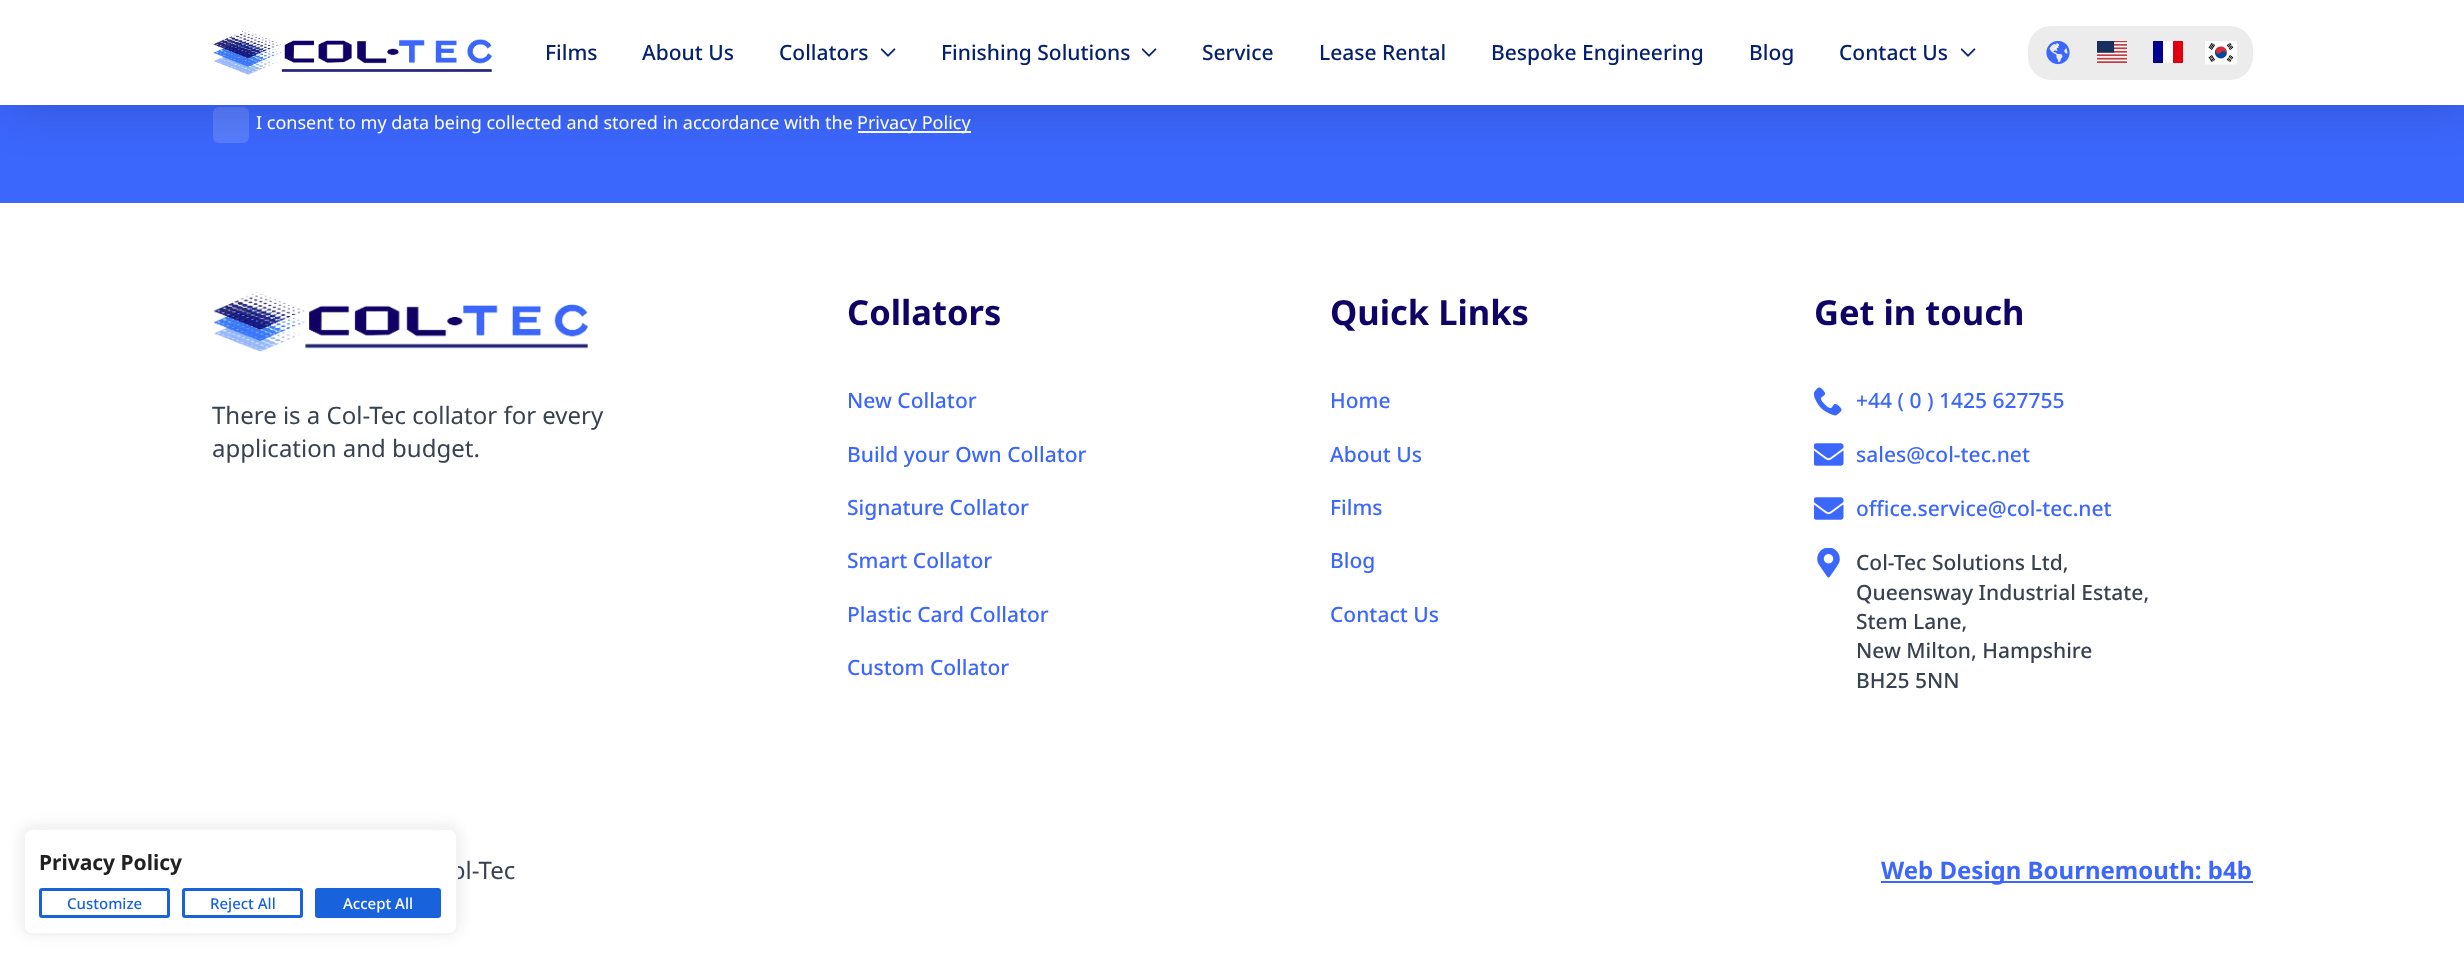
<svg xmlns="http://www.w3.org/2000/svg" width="2464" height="956">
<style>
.a{font:500 21px Noto Sans;fill:#05216d}
.b{font:18px Noto Sans;fill:#fff}
.c{font:24px Noto Sans;fill:#374150}
.d{font:bold 34.5px Noto Sans;fill:#0f0366}
.e{font:500 21px Noto Sans;fill:#3c67fd}
.f{font:500 21px Noto Sans;fill:#374150}
.g{font:bold 24px Noto Sans;fill:#3c67fd}
.h{font:bold 21px Noto Sans;fill:#212121}
.i{font:500 15px Noto Sans;fill:#1863dc}
.j{font:500 15px Noto Sans;fill:#fff}
</style>
<rect width="100%" height="100%" fill="#fff"/>
<path fill="#3c67fd" d="M0 105h2464v98H0z"/>
<rect fill="#577cfd" x="213" y="107" width="36" height="36" rx="6"/>
<path fill="#fff" d="M858 131h113v2H858z"/>
<path fill="#00000024" filter="blur(22.5px)" d="M8 8h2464v105H8z"/>
<path fill="#fff" d="M0 0h2464v105H0z"/>
<image href="1.png" x="213" y="30" width="279" height="45"/>
<image href="2.png" x="881" y="48" width="15" height="9"/>
<image href="2.png" x="1142" y="48" width="15" height="9"/>
<image href="2.png" x="1961" y="48" width="15" height="9"/>
<rect fill="#ececec" x="2028" y="26" width="225" height="54" rx="23"/>
<image href="3.png" x="2046" y="41" width="24" height="24"/>
<image href="4.png" x="2097" y="41" width="30" height="22"/>
<path fill="#fff" d="M2163 41h10v22H2163z"/>
<path fill="#000091" d="M2153 41h10v22H2153z"/>
<path fill="#e1000f" d="M2173 41h10v22H2173z"/>
<image href="5.png" x="2205" y="41" width="32" height="24"/>
<image href="6.png" x="213" y="292" width="375" height="60"/>
<image href="7.png" x="1814" y="387" width="28" height="29"/>
<image href="8.png" x="1814" y="443" width="30" height="23"/>
<image href="8.png" x="1814" y="497" width="30" height="23"/>
<image href="9.png" x="1817" y="548" width="23" height="30"/>
<path fill="#3c67fd" d="M1881 881h372v2H1881z"/>
<rect fill="#acabab4d" filter="blur(7.5px)" x="23" y="827" width="435" height="106" rx="9"/>
<text class="a" x="545" y="60">Films</text>
<text class="a" x="642" y="60">About Us</text>
<text class="a" x="779" y="60">Collators</text>
<text class="a" x="941" y="60">Finishing Solutions</text>
<text class="a" x="1202" y="60">Service</text>
<text class="a" x="1319" y="60">Lease Rental</text>
<text class="a" x="1491" y="60">Bespoke Engineering</text>
<text class="a" x="1749" y="60">Blog</text>
<text class="a" x="1839" y="60">Contact Us</text>
<text class="b" x="256" y="129">I consent to my data being collected and stored in accordance with the</text>
<text class="b" x="857" y="129">Privacy Policy</text>
<text class="c" x="212" y="424">There is a Col-Tec collator for every</text>
<text class="c" x="212" y="457">application and budget.</text>
<text class="d" x="847" y="325">Collators</text>
<text class="e" x="847" y="408">New Collator</text>
<text class="e" x="847" y="462">Build your Own Collator</text>
<text class="e" x="847" y="515">Signature Collator</text>
<text class="e" x="847" y="568">Smart Collator</text>
<text class="e" x="847" y="622">Plastic Card Collator</text>
<text class="e" x="847" y="675">Custom Collator</text>
<text class="d" x="1330" y="325">Quick Links</text>
<text class="e" x="1330" y="408">Home</text>
<text class="e" x="1330" y="462">About Us</text>
<text class="e" x="1330" y="515">Films</text>
<text class="e" x="1330" y="568">Blog</text>
<text class="e" x="1330" y="622">Contact Us</text>
<text class="d" x="1814" y="325">Get in touch</text>
<text class="e" x="1856" y="408">+44 ( 0 ) 1425 627755</text>
<text class="e" x="1856" y="462">sales@col-tec.net</text>
<text class="e" x="1856" y="516">office.service@col-tec.net</text>
<text class="f" x="1856" y="570">Col-Tec Solutions Ltd,</text>
<text class="f" x="1856" y="600">Queensway Industrial Estate,</text>
<text class="f" x="1856" y="629">Stem Lane,</text>
<text class="f" x="1856" y="658">New Milton, Hampshire</text>
<text class="f" x="1856" y="688">BH25 5NN</text>
<text class="c" x="451" y="879">ol-Tec</text>
<text class="g" x="1881" y="879">Web Design Bournemouth: b4b</text>
<rect fill="#fff" stroke="#f4f4f4" stroke-width="2" x="24" y="829" width="433" height="105" rx="8"/>
<text class="h" x="39" y="870">Privacy Policy</text>
<rect fill="none" stroke="#1863dc" stroke-width="3" x="40.5" y="889.5" width="128" height="27" rx="1.5"/>
<text class="i" x="67" y="909">Customize</text>
<rect fill="none" stroke="#1863dc" stroke-width="3" x="183.5" y="889.5" width="118" height="27" rx="1.5"/>
<text class="i" x="210" y="909">Reject All</text>
<rect fill="#1863dc" stroke="#1863dc" stroke-width="3" x="316.5" y="889.5" width="123" height="27" rx="1.5"/>
<text class="j" x="343" y="909">Accept All</text>
</svg>
